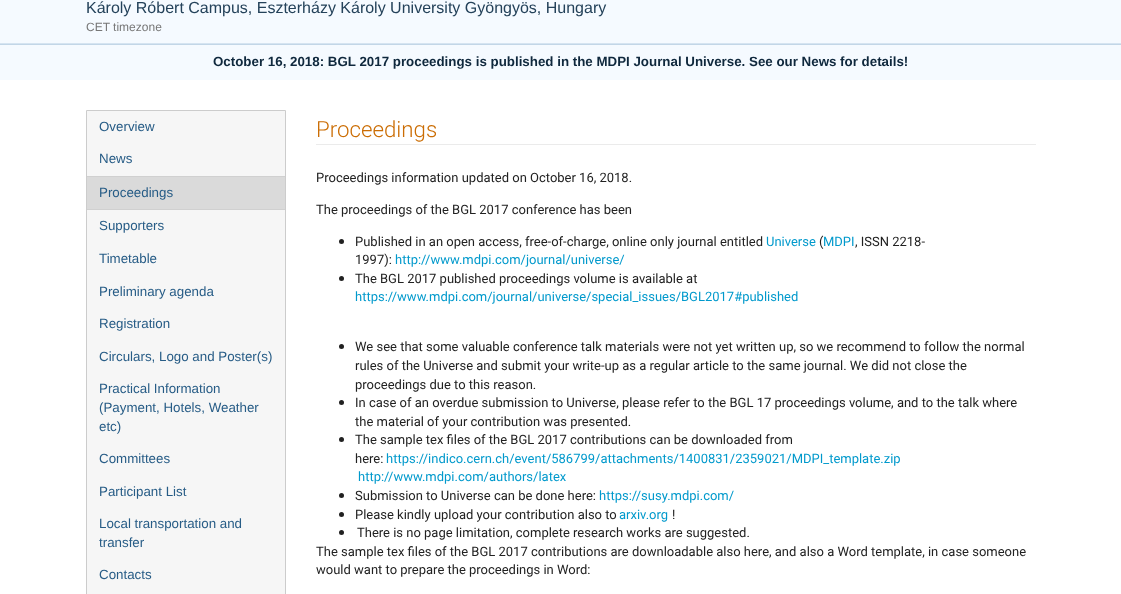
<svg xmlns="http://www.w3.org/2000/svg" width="1121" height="594">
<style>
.a{font:16px Liberation Sans;fill:#24425a}
.b{font:12px Liberation Sans;fill:#777}
.c{font:bold 13.33px Liberation Sans;fill:#0f283d}
.d{font:13.33px 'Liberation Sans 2';fill:#275c86}
.e{font:300 22.25px Roboto;fill:#cb6d04}
.f{font:13px Roboto;fill:#212121}
.g{font:13px Roboto;fill:#09c}
</style>
<rect width="100%" height="100%" fill="#fff"/>
<path fill="#f5faff" d="M0 0h1121v43H0z"/>
<path fill="#d5e4f1" d="M0 43h1121v1H0z"/>
<path fill="#f5faff" d="M0 45h1121v35H0z"/>
<path fill="#c2d6e7" d="M0 44h1121v1H0z"/>
<path fill="#f6f6f6" stroke="#ccc" d="M86.5 110.5h199v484H86.5z"/>
<path fill="#dadada" d="M87 177h198v32H87z"/>
<path fill="#d0d0d0" d="M87 176h198v1H87z"/>
<path fill="#d0d0d0" d="M87 209h198v1H87z"/>
<path fill="#ebebeb" d="M316 144h720v1H316z"/>
<circle fill="#212121" cx="341.5" cy="241.5" r="2.5"/>
<circle fill="#212121" cx="341.5" cy="278.5" r="2.5"/>
<circle fill="#212121" cx="341.5" cy="346.5" r="2.5"/>
<circle fill="#212121" cx="341.5" cy="402.5" r="2.5"/>
<circle fill="#212121" cx="341.5" cy="439.5" r="2.5"/>
<circle fill="#212121" cx="341.5" cy="495.5" r="2.5"/>
<circle fill="#212121" cx="341.5" cy="514.5" r="2.5"/>
<circle fill="#212121" cx="341.5" cy="532.5" r="2.5"/>
<text class="a" x="86" y="13">Károly Róbert Campus, Eszterházy Károly University Gyöngyös, Hungary</text>
<text class="b" x="86" y="31">CET timezone</text>
<text class="c" x="213" y="66">October 16, 2018: BGL 2017 proceedings is published in the MDPI Journal Universe. See our News for details!</text>
<text class="d" x="99" y="131">Overview</text>
<text class="d" x="99" y="163">News</text>
<text class="d" x="99" y="197">Proceedings</text>
<text class="d" x="99" y="230">Supporters</text>
<text class="d" x="99" y="263">Timetable</text>
<text class="d" x="99" y="296">Preliminary agenda</text>
<text class="d" x="99" y="328">Registration</text>
<text class="d" x="99" y="361">Circulars, Logo and Poster(s)</text>
<text class="d" x="99" y="393">Practical Information</text>
<text class="d" x="99" y="412">(Payment, Hotels, Weather</text>
<text class="d" x="99" y="431">etc)</text>
<text class="d" x="99" y="463">Committees</text>
<text class="d" x="99" y="496">Participant List</text>
<text class="d" x="99" y="528">Local transportation and</text>
<text class="d" x="99" y="547">transfer</text>
<text class="d" x="99" y="579">Contacts</text>
<text class="e" x="316" y="137">Proceedings</text>
<text class="f" x="316" y="182">Proceedings information updated on October 16, 2018.</text>
<text class="f" x="316" y="214">The proceedings of the BGL 2017 conference has been</text>
<text class="f" x="355" y="246">Published in an open access, free-of-charge, online only journal entitled</text>
<text class="g" x="766" y="246">Universe</text>
<text class="f" x="819" y="246">(</text>
<text class="g" x="823" y="246">MDPI</text>
<text class="f" x="855" y="246">, ISSN 2218-</text>
<text class="f" x="355" y="264">1997):</text>
<text class="g" x="395" y="264">http://www.mdpi.com/journal/universe/</text>
<text class="f" x="355" y="283">The BGL 2017 published proceedings volume is available at</text>
<text class="g" x="355" y="301">https://www.mdpi.com/journal/universe/special_issues/BGL2017#published</text>
<text class="f" x="355" y="351">We see that some valuable conference talk materials were not yet written up, so we recommend to follow the normal</text>
<text class="f" x="355" y="370">rules of the Universe and submit your write-up as a regular article to the same journal. We did not close the</text>
<text class="f" x="355" y="389">proceedings due to this reason.</text>
<text class="f" x="355" y="407">In case of an overdue submission to Universe, please refer to the BGL 17 proceedings volume, and to the talk where</text>
<text class="f" x="355" y="426">the material of your contribution was presented.</text>
<text class="f" x="355" y="444">The sample tex files of the BGL 2017 contributions can be downloaded from</text>
<text class="f" x="355" y="463">here:</text>
<text class="g" x="386" y="463">https://indico.cern.ch/event/586799/attachments/1400831/2359021/MDPI_template.zip</text>
<text class="g" x="358" y="481">http://www.mdpi.com/authors/latex</text>
<text class="f" x="355" y="500">Submission to Universe can be done here:</text>
<text class="g" x="599" y="500">https://susy.mdpi.com/</text>
<text class="f" x="355" y="519">Please kindly upload your contribution also to</text>
<text class="g" x="619" y="519">arxiv.org</text>
<text class="f" x="672" y="519">!</text>
<text class="f" x="357" y="537">There is no page limitation, complete research works are suggested.</text>
<text class="f" x="316" y="556">The sample tex files of the BGL 2017 contributions are downloadable also here, and also a Word template, in case someone</text>
<text class="f" x="316" y="574">would want to prepare the proceedings in Word:</text>
</svg>
